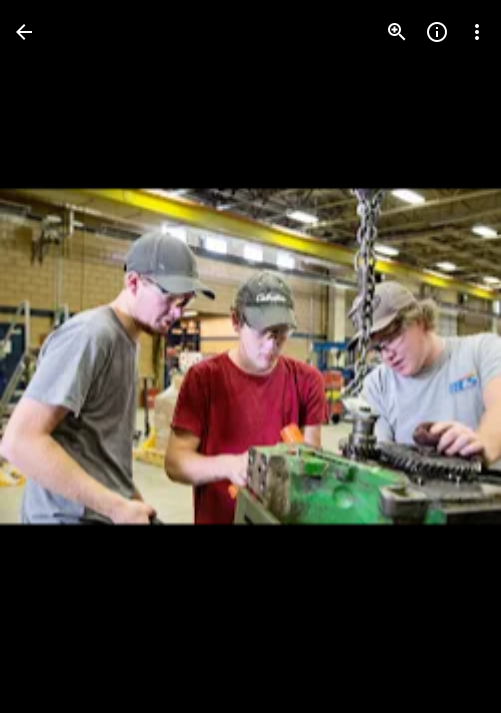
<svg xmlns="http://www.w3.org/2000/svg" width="501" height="713">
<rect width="100%" height="100%" fill="#000"/>
<image href="1.png" x="16" y="24" width="16" height="16"/>
<image href="2.png" x="388" y="23" width="18" height="18"/>
<image href="3.png" x="427" y="22" width="20" height="20"/>
<image href="4.png" x="475" y="24" width="4" height="16"/>
<image href="5.png" x="0" y="187" width="501" height="339"/>
</svg>
